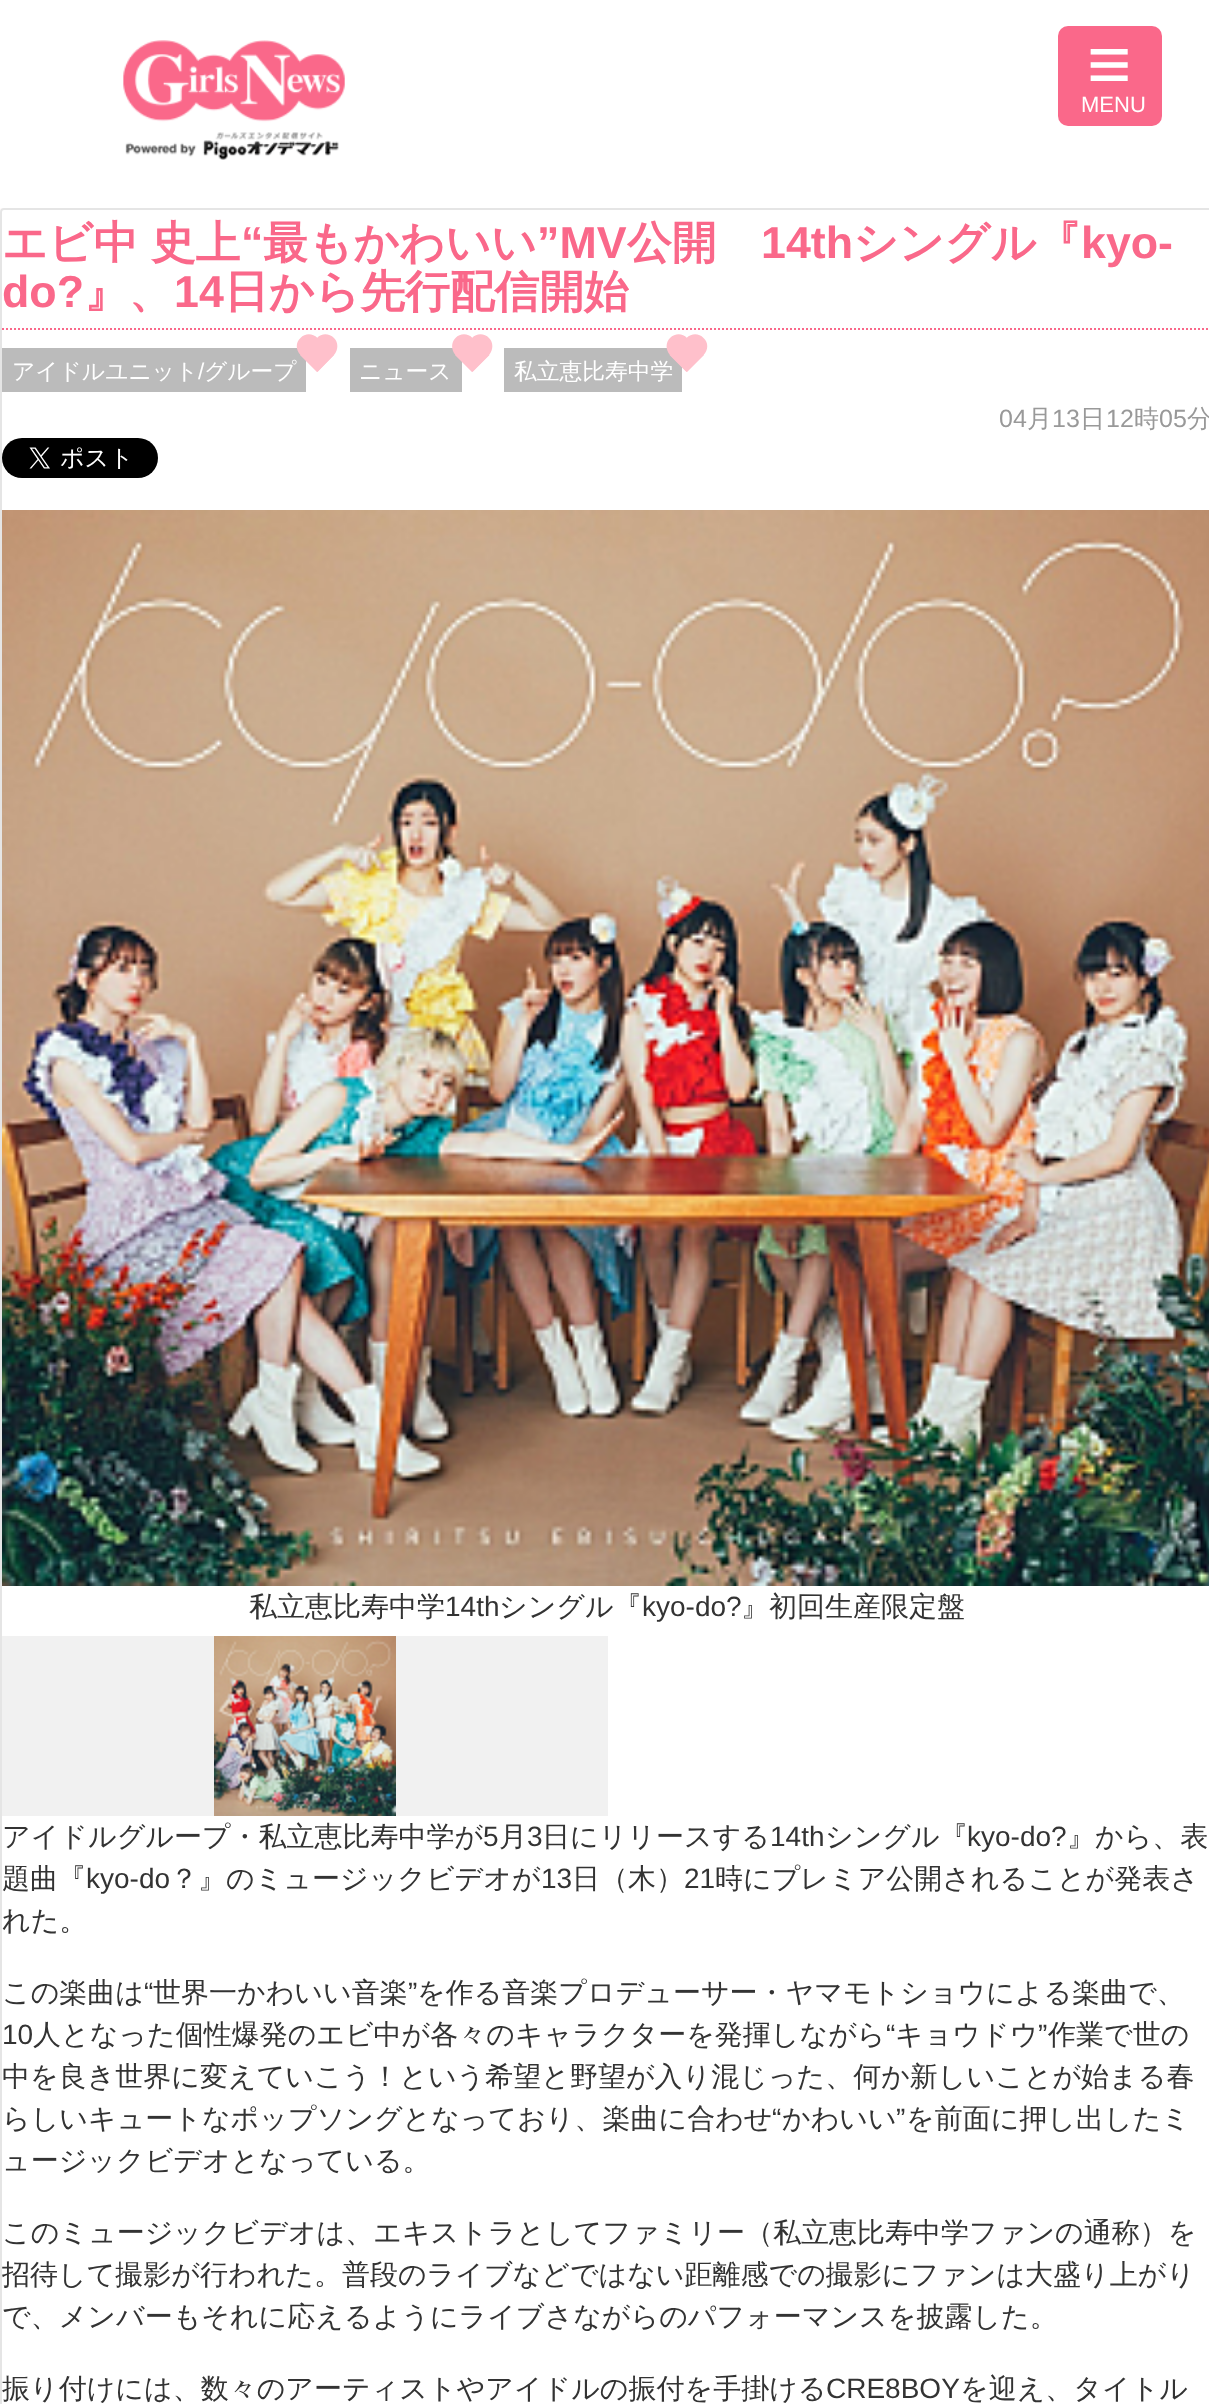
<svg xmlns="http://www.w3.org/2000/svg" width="1209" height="2404">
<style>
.a{font:76px Liberation Sans;fill:#fff}
.b{font:22px Liberation Sans;fill:#fff}
.c{font:bold 44.75px WenQuanYi Zen Hei;fill:#fa688a}
.d{font:bold 44.75px Liberation Sans;fill:#fa688a}
.e{font:500 22.75px WenQuanYi Zen Hei;fill:#fff}
.f{font:22.75px Liberation Sans;fill:#fff}
.g{font:25px Liberation Sans;fill:#999}
.h{font:500 25px WenQuanYi Zen Hei;fill:#999}
.i{font:500 28px WenQuanYi Zen Hei;fill:#333}
.j{font:28px Liberation Sans;fill:#333}
</style>
<rect width="100%" height="100%" fill="#fff"/>
<image href="1.png" x="123" y="40" width="222" height="120"/>
<rect fill="#fa688a" x="1058" y="26" width="104" height="100" rx="10"/>
<path fill="#fffbfb" d="M0 208h4v4H0z"/>
<path fill="#fff" d="M4 208h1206v2196h-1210v-2192c0-2 2-4 4-4z"/>
<rect fill="none" stroke="#e5e5e5" stroke-width="2" x="1" y="209" width="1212" height="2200" rx="3"/>
<path fill="none" stroke="#fa688a" stroke-width="2" stroke-dasharray="2 2" d="M2 329h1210"/>
<path fill="#bbb" d="M2 348h304v44H2z"/>
<path fill="#bbb" d="M350 348h112v44H350z"/>
<path fill="#ffc0cb" d="M455.5 338c4.5-5 12.5-5 17 0l17 17l-17 17l-17-17c-4.5-5-4.5-12.5 0-17z"/>
<path fill="#ffc0cb" d="M489 338c4.5 4.5 4.5 12 0 17l-17 17l-17-17l17-17c4.5-5 12.5-5 17 0z"/>
<path fill="#bbb" d="M504 348h178v44H504z"/>
<image href="2.png" x="2" y="438" width="156" height="40"/>
<image href="3.png" x="2" y="510" width="1207" height="1076"/>
<path fill="#f1f1f1" d="M2 1636h606v180H2z"/>
<image href="4.png" x="214" y="1636" width="182" height="180"/>
<text class="a" x="1087" y="90">≡</text>
<text class="b" x="1081" y="112">MENU</text>
<text class="c" x="2" y="258" word-spacing="-1">エビ中 史上</text>
<text class="d" x="241" y="258">“</text>
<text class="c" x="263" y="258">最もかわいい</text>
<text class="d" x="537" y="258">”MV</text>
<text class="c" x="627" y="258">公開</text>
<text class="d" x="761" y="258">14th</text>
<text class="c" x="853" y="258">シングル『</text>
<text class="d" x="1081" y="258">kyo-</text>
<text class="d" x="2" y="307">do?</text>
<text class="c" x="84" y="307">』、</text>
<text class="d" x="174" y="307">14</text>
<text class="c" x="224" y="307">日から先行配信開始</text>
<text class="e" x="12" y="379">アイドルユニット</text>
<text class="f" x="198" y="379">/</text>
<text class="e" x="204" y="379">グループ</text>
<path fill="#ffc0cb" d="M300.5 338c4.5-5 12-5 17 0l16.5 17l-16.5 17l-17-17c-5-5-5-12.5 0-17z"/>
<path fill="#ffc0cb" d="M334 338c4.5 4.5 4.5 12 0 17l-17 17l-17-17l17-17c4.5-5 12-5 17 0z"/>
<text class="e" x="359" y="379">ニュース</text>
<text class="e" x="514" y="379">私立恵比寿中学</text>
<path fill="#ffc0cb" d="M670 338c5-5 12.5-5 17 0l17 17l-17 17l-17-17c-4.5-5-4.5-12.5 0-17z"/>
<path fill="#ffc0cb" d="M703.5 338c5 4.5 5 12 0 17l-17 17l-17-17l17-17c5-5 12.5-5 17 0z"/>
<text class="g" x="999" y="427">04</text>
<text class="h" x="1027" y="427">月</text>
<text class="g" x="1052" y="427">13</text>
<text class="h" x="1080" y="427">日</text>
<text class="g" x="1106" y="427">12</text>
<text class="h" x="1134" y="427">時</text>
<text class="g" x="1159" y="427">05</text>
<text class="h" x="1187" y="427">分</text>
<text class="i" x="249" y="1616">私立恵比寿中学</text>
<text class="j" x="445" y="1616">14th</text>
<text class="i" x="499" y="1616">シングル『</text>
<text class="j" x="642" y="1616">kyo-do?</text>
<text class="i" x="741" y="1616">』初回生産限定盤</text>
<text class="i" x="2" y="1846">アイドルグループ・私立恵比寿中学が</text>
<text class="j" x="483" y="1846">5</text>
<text class="i" x="499" y="1846">月</text>
<text class="j" x="527" y="1846">3</text>
<text class="i" x="542" y="1846">日にリリースする</text>
<text class="j" x="770" y="1846">14th</text>
<text class="i" x="825" y="1846">シングル『</text>
<text class="j" x="967" y="1846">kyo-do?</text>
<text class="i" x="1067" y="1846">』から、表</text>
<text class="i" x="2" y="1888">題曲『</text>
<text class="j" x="86" y="1888">kyo-do</text>
<text class="i" x="170" y="1888">？』のミュージックビデオが</text>
<text class="j" x="541" y="1888">13</text>
<text class="i" x="572" y="1888">日（木）</text>
<text class="j" x="684" y="1888">21</text>
<text class="i" x="715" y="1888">時にプレミア公開されることが発表さ</text>
<text class="i" x="2" y="1930">れた。</text>
<text class="i" x="2" y="2002">この楽曲は</text>
<text class="j" x="144" y="2002">“</text>
<text class="i" x="153" y="2002">世界一かわいい音楽</text>
<text class="j" x="408" y="2002">”</text>
<text class="i" x="417" y="2002">を作る音楽プロデューサー・ヤマモトショウによる楽曲で、</text>
<text class="j" x="2" y="2044">10</text>
<text class="i" x="33" y="2044">人となった個性爆発のエビ中が各々のキャラクターを発揮しながら</text>
<text class="j" x="886" y="2044">“</text>
<text class="i" x="895" y="2044">キョウドウ</text>
<text class="j" x="1038" y="2044">”</text>
<text class="i" x="1048" y="2044">作業で世の</text>
<text class="i" x="2" y="2086">中を良き世界に変えていこう！という希望と野望が入り混じった、何か新しいことが始まる春</text>
<text class="i" x="2" y="2128">らしいキュートなポップソングとなっており、楽曲に合わせ</text>
<text class="j" x="772" y="2128">“</text>
<text class="i" x="782" y="2128">かわいい</text>
<text class="j" x="896" y="2128">”</text>
<text class="i" x="906" y="2128">を前面に押し出したミ</text>
<text class="i" x="2" y="2170">ュージックビデオとなっている。</text>
<text class="i" x="2" y="2242">このミュージックビデオは、エキストラとしてファミリー（私立恵比寿中学ファンの通称）を</text>
<text class="i" x="2" y="2284">招待して撮影が行われた。普段のライブなどではない距離感での撮影にファンは大盛り上がり</text>
<text class="i" x="2" y="2326">で、メンバーもそれに応えるようにライブさながらのパフォーマンスを披露した。</text>
<text class="i" x="2" y="2398">振り付けには、数々のアーティストやアイドルの振付を手掛ける</text>
<text class="j" x="826" y="2398">CRE8BOY</text>
<text class="i" x="960" y="2398">を迎え、タイトル</text>
</svg>
